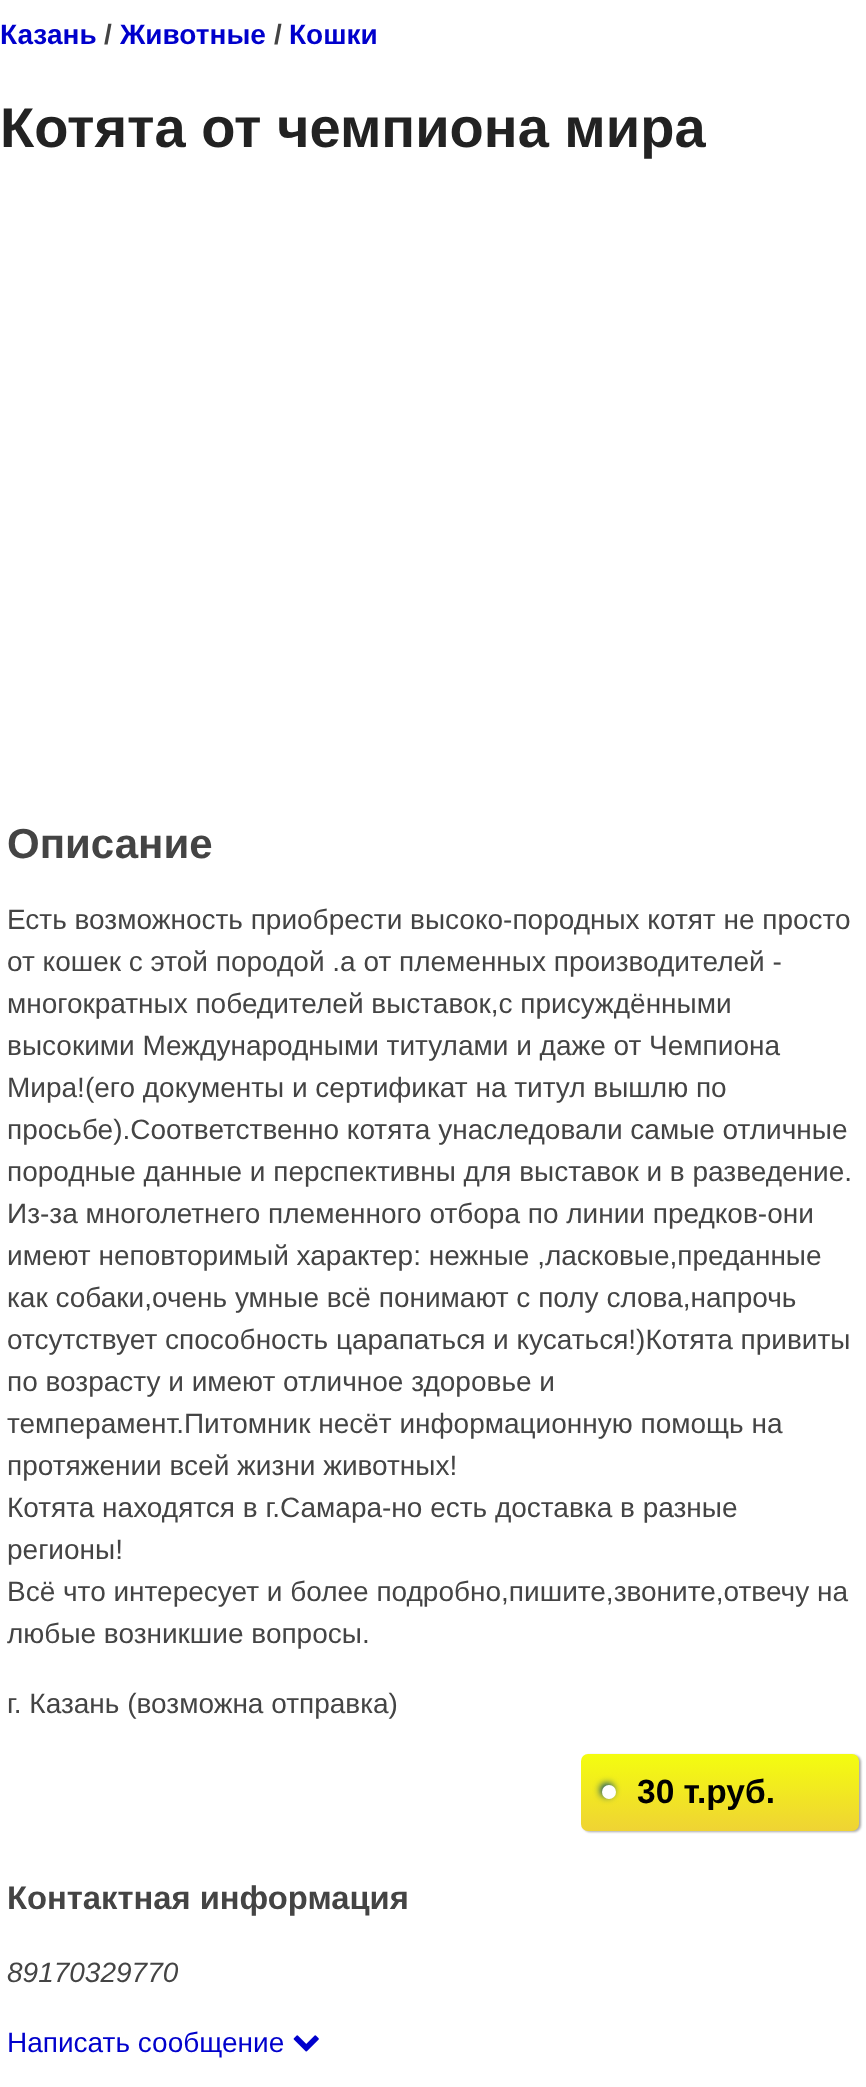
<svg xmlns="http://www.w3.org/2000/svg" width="866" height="2087">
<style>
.a{font:bold 28px Liberation Sans;fill:#00c}
.b{font:bold 28px Liberation Sans;fill:#444}
.c{font:bold 56px Liberation Sans;fill:#222}
.d{font:bold 42px Liberation Sans;fill:#444}
.e{font:28px Liberation Sans;fill:#444}
.f{font:bold 33.5px Liberation Sans;fill:#000}
.g{font:bold 32.75px Liberation Sans;fill:#444}
.h{font:italic 28px Liberation Sans;fill:#444}
.i{font:28px Liberation Sans;fill:#00c}
</style>
<defs>
<linearGradient id="g1" gradientUnits="userSpaceOnUse" x1="581" y1="1754" x2="581" y2="1831"><stop offset="0" stop-color="#f4fd0f"/><stop offset="1" stop-color="#efd334"/></linearGradient>
</defs>
<rect width="100%" height="100%" fill="#fff"/>
<rect fill="#aaa" filter="blur(1px)" x="583" y="1755" width="278" height="77" rx="7"/>
<rect fill="url(#g1)" x="581" y="1754" width="278" height="77" rx="7"/>
<rect fill="#004977" filter="blur(3.5px)" x="600" y="1783" width="14" height="14" rx="7"/>
<circle fill="#fff" cx="609" cy="1792" r="7"/>
<image href="1.png" x="293" y="2035" width="26" height="17"/>
<text class="a" x="0" y="44">Казань</text>
<text class="b" x="104" y="44">/</text>
<text class="a" x="120" y="44">Животные</text>
<text class="b" x="274" y="44">/</text>
<text class="a" x="289" y="44">Кошки</text>
<text class="c" x="0" y="147">Котята от чемпиона мира</text>
<text class="d" x="7" y="858">Описание</text>
<text class="e" x="7" y="929">Есть возможность приобрести высоко-породных котят не просто</text>
<text class="e" x="7" y="971">от кошек с этой породой .а от племенных производителей -</text>
<text class="e" x="7" y="1013">многократных победителей выставок,с присуждёнными</text>
<text class="e" x="7" y="1055">высокими Международными титулами и даже от Чемпиона</text>
<text class="e" x="7" y="1097">Мира!(его документы и сертификат на титул вышлю по</text>
<text class="e" x="7" y="1139">просьбе).Соответственно котята унаследовали самые отличные</text>
<text class="e" x="7" y="1181">породные данные и перспективны для выставок и в разведение.</text>
<text class="e" x="7" y="1223">Из-за многолетнего племенного отбора по линии предков-они</text>
<text class="e" x="7" y="1265">имеют неповторимый характер: нежные ,ласковые,преданные</text>
<text class="e" x="7" y="1307">как собаки,очень умные всё понимают с полу слова,напрочь</text>
<text class="e" x="7" y="1349">отсутствует способность царапаться и кусаться!)Котята привиты</text>
<text class="e" x="7" y="1391">по возрасту и имеют отличное здоровье и</text>
<text class="e" x="7" y="1433">темперамент.Питомник несёт информационную помощь на</text>
<text class="e" x="7" y="1475">протяжении всей жизни животных!</text>
<text class="e" x="7" y="1517">Котята находятся в г.Самара-но есть доставка в разные</text>
<text class="e" x="7" y="1559">регионы!</text>
<text class="e" x="7" y="1601">Всё что интересует и более подробно,пишите,звоните,отвечу на</text>
<text class="e" x="7" y="1643">любые возникшие вопросы.</text>
<text class="e" x="7" y="1713">г. Казань (возможна отправка)</text>
<text class="f" x="637" y="1803">30 т.руб.</text>
<text class="g" x="7" y="1909">Контактная информация</text>
<text class="h" x="7" y="1982">89170329770</text>
<text class="i" x="7" y="2052">Написать сообщение</text>
</svg>
